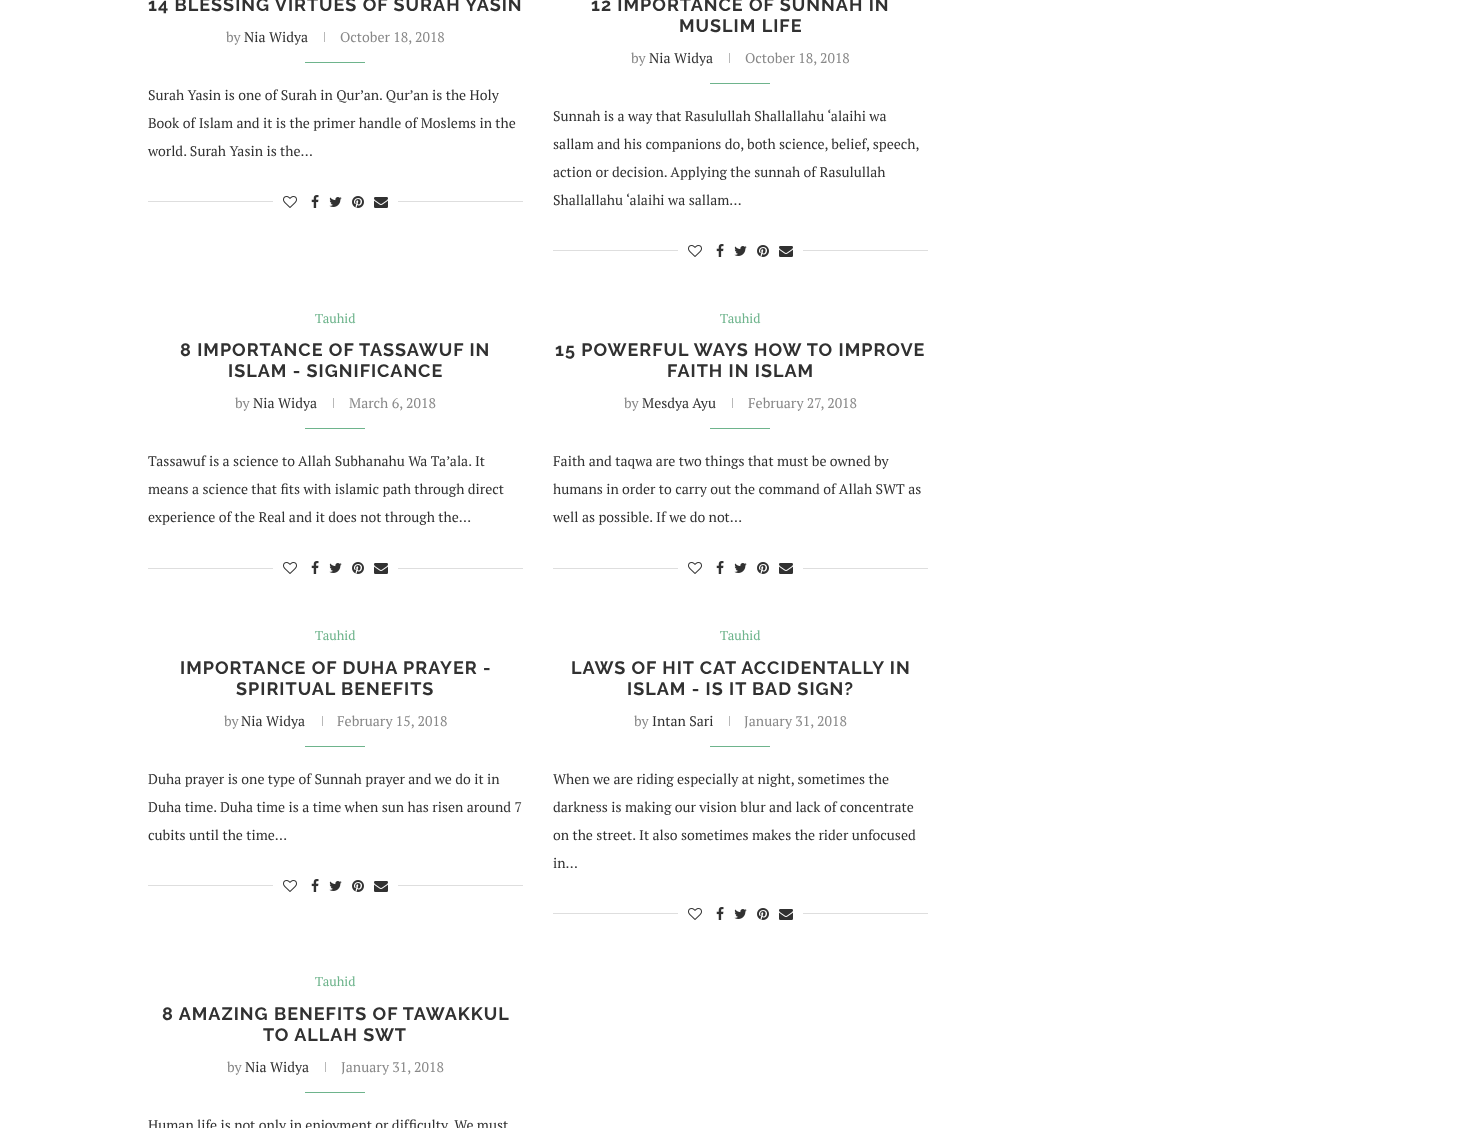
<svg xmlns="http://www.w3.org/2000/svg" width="1466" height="1128">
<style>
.a{font:bold 18px Raleway;letter-spacing:1px;fill:#313131}
.b{font:14px PT Serif;fill:#888}
.c{font:14px PT Serif;fill:#313131}
.d{font:13px PT Serif;fill:#6eb48c}
</style>
<rect width="100%" height="100%" fill="#fff"/>
<path fill="#b8b8b8" d="M324 32h1v10H324z"/>
<path fill="#6eb48c" d="M305 62h60v1H305z"/>
<path fill="#dedede" d="M148 201h375v1H148z"/>
<path fill="#fff" d="M273 201h125v1H273z"/>
<image href="1.png" x="283" y="196" width="14" height="12"/>
<image href="2.png" x="311" y="195" width="8" height="13"/>
<image href="3.png" x="329" y="197" width="13" height="10"/>
<image href="4.png" x="352" y="196" width="12" height="12"/>
<image href="5.png" x="374" y="197" width="14" height="11"/>
<path fill="#b8b8b8" d="M729 53h1v10H729z"/>
<path fill="#6eb48c" d="M710 83h60v1H710z"/>
<path fill="#dedede" d="M553 250h375v1H553z"/>
<path fill="#fff" d="M678 250h125v1H678z"/>
<image href="1.png" x="688" y="245" width="14" height="12"/>
<image href="2.png" x="716" y="244" width="8" height="13"/>
<image href="3.png" x="734" y="246" width="13" height="10"/>
<image href="4.png" x="757" y="245" width="12" height="12"/>
<image href="5.png" x="779" y="246" width="14" height="11"/>
<path fill="#b8b8b8" d="M333 398h1v10H333z"/>
<path fill="#6eb48c" d="M305 428h60v1H305z"/>
<path fill="#dedede" d="M148 568h375v1H148z"/>
<path fill="#fff" d="M273 568h125v1H273z"/>
<image href="1.png" x="283" y="562" width="14" height="12"/>
<image href="2.png" x="311" y="561" width="8" height="13"/>
<image href="3.png" x="329" y="563" width="13" height="10"/>
<image href="4.png" x="352" y="562" width="12" height="12"/>
<image href="5.png" x="374" y="563" width="14" height="11"/>
<path fill="#b8b8b8" d="M732 398h1v10H732z"/>
<path fill="#6eb48c" d="M710 428h60v1H710z"/>
<path fill="#dedede" d="M553 568h375v1H553z"/>
<path fill="#fff" d="M678 568h125v1H678z"/>
<image href="1.png" x="688" y="562" width="14" height="12"/>
<image href="2.png" x="716" y="561" width="8" height="13"/>
<image href="3.png" x="734" y="563" width="13" height="10"/>
<image href="4.png" x="757" y="562" width="12" height="12"/>
<image href="5.png" x="779" y="563" width="14" height="11"/>
<path fill="#b8b8b8" d="M322 716h1v10H322z"/>
<path fill="#6eb48c" d="M305 746h60v1H305z"/>
<path fill="#dedede" d="M148 885h375v1H148z"/>
<path fill="#fff" d="M273 885h125v1H273z"/>
<image href="1.png" x="283" y="880" width="14" height="12"/>
<image href="2.png" x="311" y="879" width="8" height="13"/>
<image href="3.png" x="329" y="881" width="13" height="10"/>
<image href="4.png" x="352" y="880" width="12" height="12"/>
<image href="5.png" x="374" y="881" width="14" height="11"/>
<path fill="#b8b8b8" d="M729 716h1v10H729z"/>
<path fill="#6eb48c" d="M710 746h60v1H710z"/>
<path fill="#dedede" d="M553 913h375v1H553z"/>
<path fill="#fff" d="M678 913h125v1H678z"/>
<image href="1.png" x="688" y="908" width="14" height="12"/>
<image href="2.png" x="716" y="907" width="8" height="13"/>
<image href="3.png" x="734" y="909" width="13" height="10"/>
<image href="4.png" x="757" y="908" width="12" height="12"/>
<image href="5.png" x="779" y="909" width="14" height="11"/>
<path fill="#b8b8b8" d="M325 1062h1v10H325z"/>
<path fill="#6eb48c" d="M305 1092h60v1H305z"/>
<text class="a" x="148" y="11">14 BLESSING VIRTUES OF SURAH YASIN</text>
<text class="b" x="226" y="42">by</text>
<text class="c" x="244" y="42">Nia Widya</text>
<text class="b" x="340" y="42">October 18, 2018</text>
<text class="c" x="148" y="100">Surah Yasin is one of Surah in Qur’an. Qur’an is the Holy</text>
<text class="c" x="148" y="128">Book of Islam and it is the primer handle of Moslems in the</text>
<text class="c" x="148" y="156">world. Surah Yasin is the…</text>
<text class="a" x="591" y="11">12 IMPORTANCE OF SUNNAH IN</text>
<text class="a" x="679" y="32">MUSLIM LIFE</text>
<text class="b" x="631" y="63">by</text>
<text class="c" x="649" y="63">Nia Widya</text>
<text class="b" x="745" y="63">October 18, 2018</text>
<text class="c" x="553" y="121">Sunnah is a way that Rasulullah Shallallahu ‘alaihi wa</text>
<text class="c" x="553" y="149">sallam and his companions do, both science, belief, speech,</text>
<text class="c" x="553" y="177">action or decision. Applying the sunnah of Rasulullah</text>
<text class="c" x="553" y="205">Shallallahu ‘alaihi wa sallam…</text>
<text class="d" x="315" y="323">Tauhid</text>
<text class="a" x="180" y="356">8 IMPORTANCE OF TASSAWUF IN</text>
<text class="a" x="228" y="377">ISLAM - SIGNIFICANCE</text>
<text class="b" x="235" y="408">by</text>
<text class="c" x="253" y="408">Nia Widya</text>
<text class="b" x="349" y="408">March 6, 2018</text>
<text class="c" x="148" y="466">Tassawuf is a science to Allah Subhanahu Wa Ta’ala. It</text>
<text class="c" x="148" y="494">means a science that fits with islamic path through direct</text>
<text class="c" x="148" y="522">experience of the Real and it does not through the…</text>
<text class="d" x="720" y="323">Tauhid</text>
<text class="a" x="555" y="356">15 POWERFUL WAYS HOW TO IMPROVE</text>
<text class="a" x="667" y="377">FAITH IN ISLAM</text>
<text class="b" x="624" y="408">by</text>
<text class="c" x="642" y="408">Mesdya Ayu</text>
<text class="b" x="748" y="408">February 27, 2018</text>
<text class="c" x="553" y="466">Faith and taqwa are two things that must be owned by</text>
<text class="c" x="553" y="494">humans in order to carry out the command of Allah SWT as</text>
<text class="c" x="553" y="522">well as possible. If we do not…</text>
<text class="d" x="315" y="640">Tauhid</text>
<text class="a" x="180" y="674">IMPORTANCE OF DUHA PRAYER -</text>
<text class="a" x="236" y="695">SPIRITUAL BENEFITS</text>
<text class="b" x="224" y="726">by</text>
<text class="c" x="241" y="726">Nia Widya</text>
<text class="b" x="337" y="726">February 15, 2018</text>
<text class="c" x="148" y="784">Duha prayer is one type of Sunnah prayer and we do it in</text>
<text class="c" x="148" y="812">Duha time. Duha time is a time when sun has risen around 7</text>
<text class="c" x="148" y="840">cubits until the time…</text>
<text class="d" x="720" y="640">Tauhid</text>
<text class="a" x="571" y="674">LAWS OF HIT CAT ACCIDENTALLY IN</text>
<text class="a" x="627" y="695">ISLAM - IS IT BAD SIGN?</text>
<text class="b" x="634" y="726">by</text>
<text class="c" x="652" y="726">Intan Sari</text>
<text class="b" x="744" y="726">January 31, 2018</text>
<text class="c" x="553" y="784">When we are riding especially at night, sometimes the</text>
<text class="c" x="553" y="812">darkness is making our vision blur and lack of concentrate</text>
<text class="c" x="553" y="840">on the street. It also sometimes makes the rider unfocused</text>
<text class="c" x="553" y="868">in…</text>
<text class="d" x="315" y="986">Tauhid</text>
<text class="a" x="162" y="1020">8 AMAZING BENEFITS OF TAWAKKUL</text>
<text class="a" x="263" y="1041">TO ALLAH SWT</text>
<text class="b" x="227" y="1072">by</text>
<text class="c" x="245" y="1072">Nia Widya</text>
<text class="b" x="341" y="1072">January 31, 2018</text>
<text class="c" x="148" y="1130">Human life is not only in enjoyment or difficulty. We must</text>
</svg>
